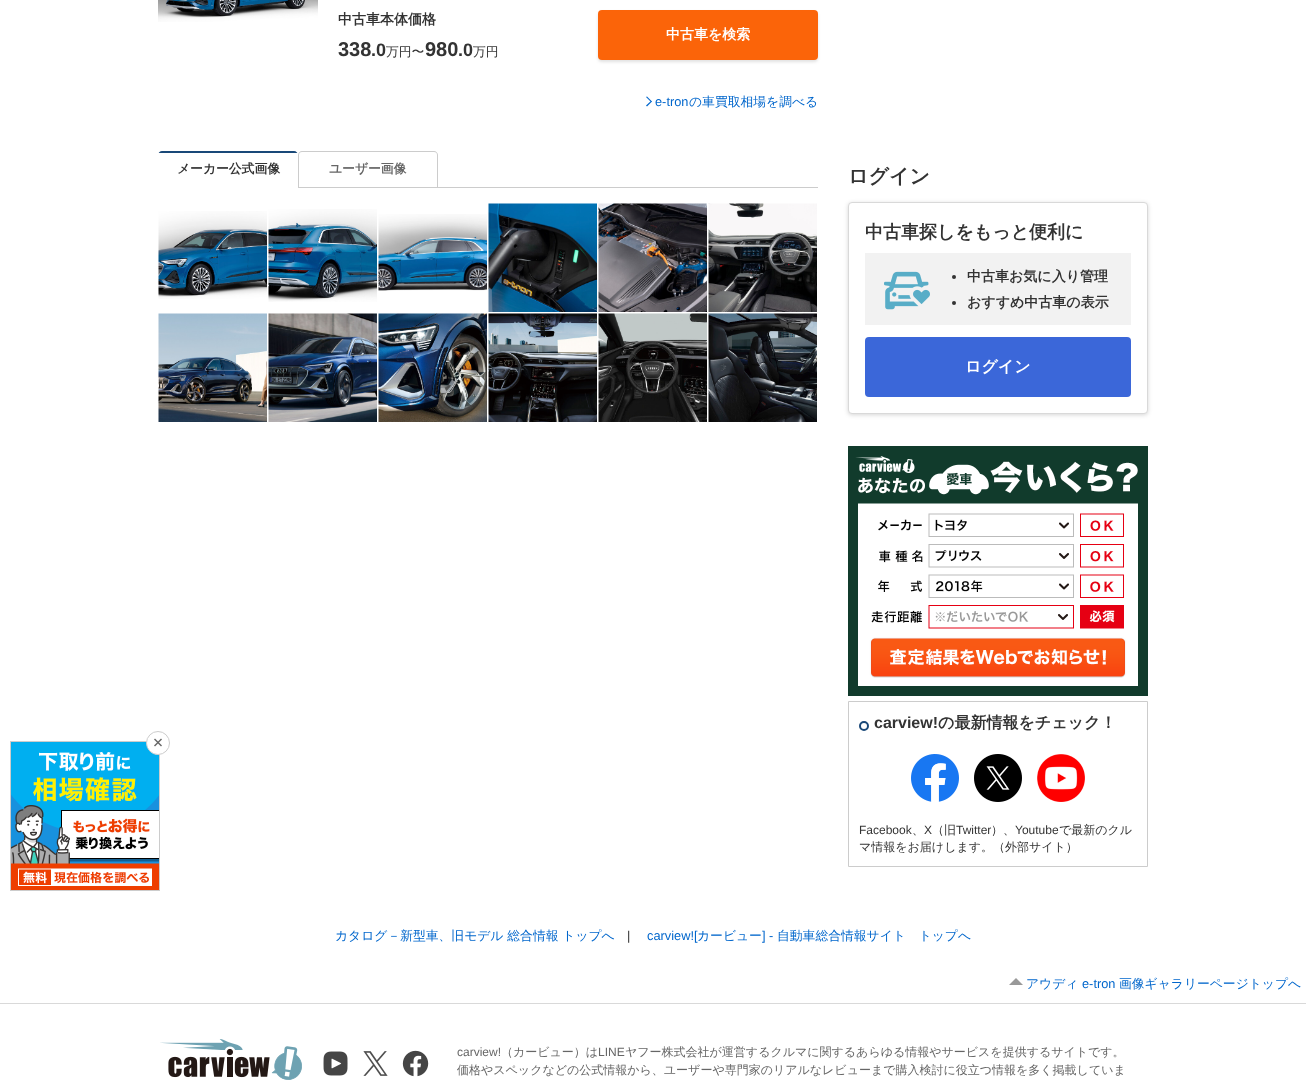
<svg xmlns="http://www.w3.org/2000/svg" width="1306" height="1091">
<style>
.a{font:bold 14px WenQuanYi Zen Hei;fill:#333}
.b{font:bold 20px Liberation Sans;fill:#333}
.c{font:bold 18px Liberation Sans;fill:#333}
.d{font:500 12.8px WenQuanYi Zen Hei;fill:#333}
.e{font:bold 14px WenQuanYi Zen Hei;fill:#fff}
.f{font:12.8px Liberation Sans;fill:#06c}
.g{font:500 12.8px WenQuanYi Zen Hei;fill:#06c}
.h{font:bold 12.8px WenQuanYi Zen Hei;fill:#333}
.i{font:bold 12.8px WenQuanYi Zen Hei;fill:#666}
.j{font:bold 20px WenQuanYi Zen Hei;fill:#333}
.k{font:bold 18px WenQuanYi Zen Hei;fill:#333}
.l{font:bold 16px WenQuanYi Zen Hei;fill:#fff}
.m{font:bold 16px Liberation Sans;fill:#333}
.n{font:bold 16px WenQuanYi Zen Hei;fill:#333}
.o{font:12px Liberation Sans;fill:#333}
.p{font:500 12px WenQuanYi Zen Hei;fill:#333}
.q{font:12.8px Liberation Sans;fill:#333}
.r{font:12px Liberation Sans;fill:#666}
.s{font:500 12px WenQuanYi Zen Hei;fill:#666}
</style>
<defs>
<clipPath id="clip1"><path d="M162 151h132c2 0 4 2 4 4v32h-140v-32c0-2 2-4 4-4z"/></clipPath>
</defs>
<rect width="100%" height="100%" fill="#fff"/>
<image href="1.png" x="10" y="741" width="150" height="150"/>
<circle fill="#fff" stroke="#ccc" cx="158" cy="743" r="11.5"/>
<path fill="#666" d="M155 738.5l7 7l-1 1l-7-7z"/>
<path fill="#666" d="M154 745.5l7-7l1 1l-7 7z"/>
<image href="2.png" x="158" y="0" width="160" height="22"/>
<rect fill="#33333326" filter="blur(1.5px)" x="598" y="12" width="220" height="50" rx="4"/>
<rect fill="#fb6409" x="598" y="10" width="220" height="50" rx="4"/>
<path fill="#06c" d="M647 96.5l5 5l-1 .5l-5-5z"/>
<path fill="#06c" d="M651 101l1 .5l-5 5l-1-1z"/>
<path fill="#ccc" d="M298 187h520v1H298z"/>
<g clip-path="url(#clip1)">
<path fill="#194878" d="M158 151h140v2H158z"/>
</g>
<path fill="#ccc" fill-rule="evenodd" d="M302 151h132c2 0 4 2 4 4v32h-140v-32c0-2 2-4 4-4zm0 1h132c2 0 3 1 3 3v32h-138v-32c0-2 1-3 3-3z"/>
<image href="3.png" x="158" y="211" width="109" height="88"/>
<image href="4.png" x="268" y="209" width="109" height="93"/>
<image href="5.png" x="378" y="214" width="109" height="77"/>
<image href="6.png" x="488" y="203" width="109" height="109"/>
<image href="7.png" x="598" y="203" width="109" height="109"/>
<image href="8.png" x="708" y="203" width="109" height="109"/>
<image href="9.png" x="158" y="313" width="109" height="109"/>
<image href="10.png" x="268" y="313" width="109" height="109"/>
<image href="11.png" x="378" y="313" width="109" height="109"/>
<image href="12.png" x="488" y="313" width="109" height="109"/>
<image href="13.png" x="598" y="313" width="109" height="109"/>
<image href="14.png" x="708" y="313" width="109" height="109"/>
<rect fill="#00000029" filter="blur(2px)" x="848" y="203" width="300" height="212" rx="4"/>
<rect fill="#fff" stroke="#d9d9d9" x="848.5" y="202.5" width="299" height="211" rx="3.5"/>
<path fill="#f2f2f2" d="M865 253h266v72H865z"/>
<image href="15.png" x="884" y="271" width="46" height="39"/>
<circle fill="#333" cx="954" cy="277" r="2"/>
<circle fill="#333" cx="954" cy="303" r="2"/>
<rect fill="#3b67d9" x="865" y="337" width="266" height="60" rx="4"/>
<image href="16.png" x="848" y="446" width="300" height="250"/>
<path fill="none" stroke="#ccc" d="M848.5 701.5h299v165H848.5z"/>
<circle fill="none" stroke="#194878" stroke-width="2" cx="864" cy="726" r="4"/>
<image href="17.png" x="911" y="754" width="48" height="48"/>
<image href="18.png" x="974" y="754" width="48" height="48"/>
<image href="19.png" x="1037" y="754" width="48" height="48"/>
<path fill="#999" d="M1023 985h-14l7-7z"/>
<path fill="#d9d9d9" d="M0 1003h1306v1H0z"/>
<image href="20.png" x="160" y="1039" width="142" height="41"/>
<image href="21.png" x="323" y="1051" width="25" height="25"/>
<image href="22.png" x="363" y="1051" width="25" height="25"/>
<image href="23.png" x="402" y="1050" width="27" height="27"/>
<text class="a" x="338" y="24">中古車本体価格</text>
<text class="b" x="338" y="56">338</text>
<text class="c" x="371" y="56">.0</text>
<text class="d" x="386" y="56">万円〜</text>
<text class="b" x="425" y="56">980</text>
<text class="c" x="458" y="56">.0</text>
<text class="d" x="473" y="56">万円</text>
<text class="e" x="666" y="39">中古車を検索</text>
<text class="f" x="655" y="106">e-tron</text>
<text class="g" x="689" y="106">の車買取相場を調べる</text>
<text class="h" x="177" y="173">メーカー公式画像</text>
<text class="i" x="329" y="173">ユーザー画像</text>
<text class="j" x="848" y="183">ログイン</text>
<text class="k" x="865" y="238">中古車探しをもっと便利に</text>
<text class="a" x="967" y="281">中古車お気に入り管理</text>
<text class="a" x="967" y="307">おすすめ中古車の表示</text>
<text class="l" x="965" y="372">ログイン</text>
<text class="m" x="874" y="728">carview!</text>
<text class="n" x="938" y="728">の最新情報をチェック！</text>
<text class="o" x="859" y="834">Facebook</text>
<text class="p" x="912" y="834">、</text>
<text class="o" x="924" y="834">X</text>
<text class="p" x="932" y="834">（旧</text>
<text class="o" x="956" y="834">Twitter</text>
<text class="p" x="991" y="834">）、</text>
<text class="o" x="1015" y="834">Youtube</text>
<text class="p" x="1059" y="834">で最新のクル</text>
<text class="p" x="859" y="851">マ情報をお届けします。（外部サイト）</text>
<text class="g" x="335" y="940">カタログ－新型車、旧モデル 総合情報 トップへ</text>
<text class="q" x="627" y="940">|</text>
<text class="f" x="647" y="940">carview![</text>
<text class="g" x="697" y="940">カービュー</text>
<text class="f" x="762" y="940">] -</text>
<text class="g" x="777" y="940">自動車総合情報サイト　トップへ</text>
<text class="g" x="1026" y="988">アウディ</text>
<text class="f" x="1082" y="988">e-tron</text>
<text class="g" x="1119" y="988">画像ギャラリーページトップへ</text>
<text class="r" x="457" y="1056">carview!</text>
<text class="s" x="501" y="1056">（カービュー）は</text>
<text class="r" x="598" y="1056">LINE</text>
<text class="s" x="625" y="1056">ヤフー株式会社が運営するクルマに関するあらゆる情報やサービスを提供するサイトです。</text>
<text class="s" x="457" y="1074">価格やスペックなどの公式情報から、ユーザーや専門家のリアルなレビューまで購入検討に役立つ情報を多く掲載していま</text>
</svg>
